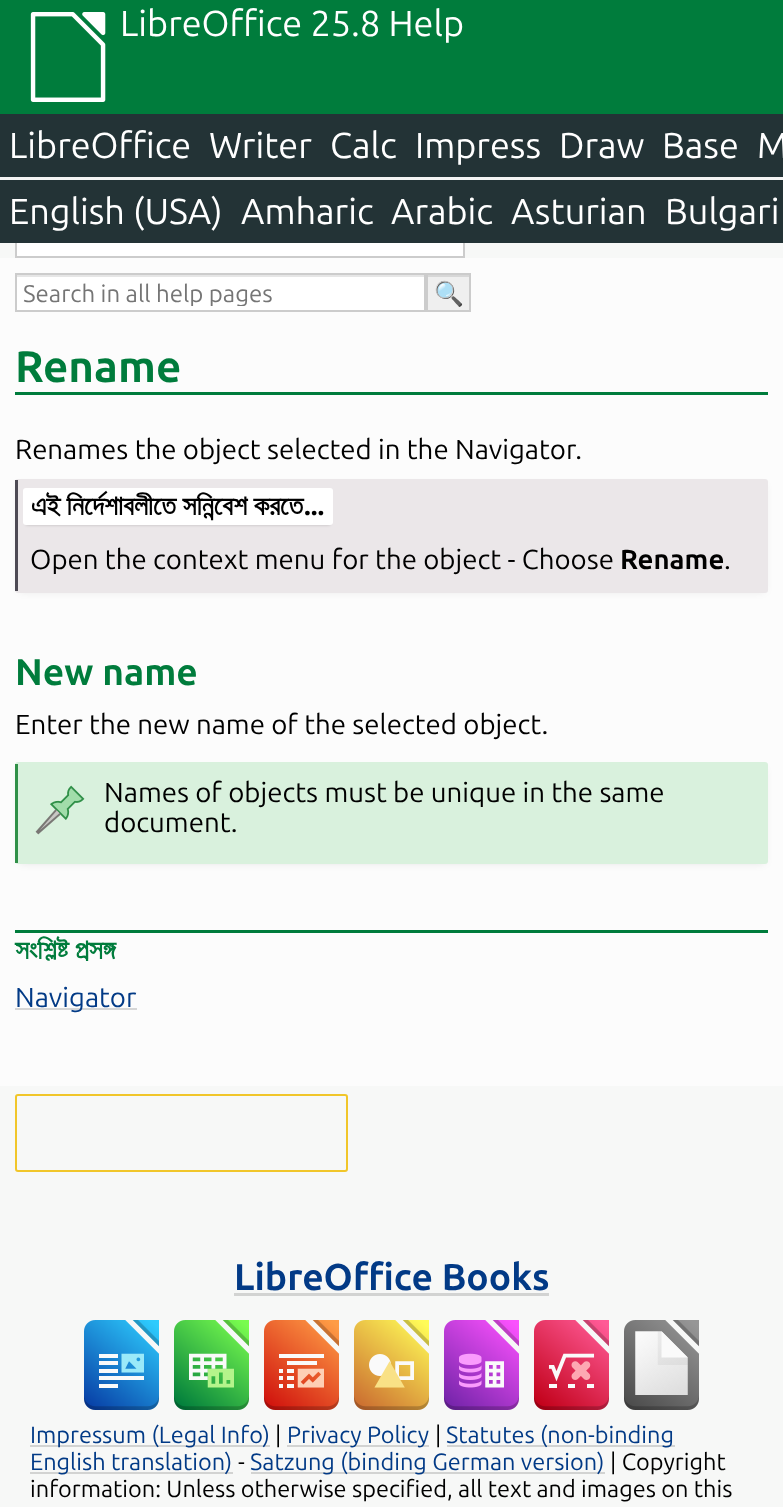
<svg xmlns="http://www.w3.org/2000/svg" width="783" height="1507">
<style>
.a{font:36px Ubuntu;fill:#fff}
.b{font:24px Ubuntu;fill:#757575}
.c{font:24px Noto Color Emoji;fill:#000}
.d{font:bold 44px Ubuntu;fill:#007c3c}
.e{font:27.6px Ubuntu;fill:#000}
.f{font:bold 27.6px FreeSans;fill:#000}
.g{font:bold 27.6px Ubuntu;fill:#000}
.h{font:bold 37.25px Ubuntu;fill:#007c3c}
.i{font:bold 27.6px FreeSans;fill:#007c3c}
.j{font:27.6px Ubuntu;fill:#023a86}
.k{font:bold 37.25px Ubuntu;fill:#023a86}
.l{font:23.5px Ubuntu;fill:#023a86}
.m{font:23.5px Ubuntu;fill:#000}
</style>
<defs>
<clipPath id="clip1"><path d="M23 279h373v27H23z"/></clipPath>
</defs>
<rect width="100%" height="100%" fill="#f7f8f7"/>
<path fill="#007c3c" d="M0 0h783v114H0z"/>
<image href="1.png" x="30" y="12" width="76" height="90"/>
<path fill="#233336" d="M0 114h783v63H0z"/>
<path fill="#f3f3f3" d="M0 177h783v3H0z"/>
<path fill="#fff" d="M17 243h446v13H17z"/>
<path fill="none" stroke="#ccc" stroke-width="2" d="M16 220h448v37H16z"/>
<path fill="#233336" d="M0 180h783v63H0z"/>
<path fill="#fcfcfc" d="M0 258h783v828H0z"/>
<path fill="#fff" d="M17 277h407v33H17z"/>
<path fill="#e6e6e6" d="M17 275h408v2H17z"/>
<path fill="none" stroke="#ccc" stroke-width="2" d="M16 274h409v37H16z"/>
<path fill="#efefef" d="M428 277h41v33H428z"/>
<path fill="#d7d7d7" d="M428 275h42v2H428z"/>
<path fill="none" stroke="#ccc" stroke-width="2" d="M427 274h43v37H427z"/>
<path fill="#007c3c" d="M15 392h753v3H15z"/>
<path fill="#0000001a" filter="blur(4px)" d="M20 486h744v105H20z"/>
<rect fill="#ebe7e9" x="15" y="479" width="753" height="114" rx="3"/>
<path fill="#4e4b55" d="M15 480h3v111H15z"/>
<path fill="#00000033" filter="blur(1.5px)" d="M26 494h304v31H26z"/>
<rect fill="#fff" x="23" y="488" width="310" height="37" rx="3"/>
<path fill="#0000001a" filter="blur(4px)" d="M20 770h744v93H20z"/>
<rect fill="#d9f1dd" x="15" y="762" width="753" height="102" rx="3"/>
<path fill="#309048" d="M15 764h3v99H15z"/>
<image href="2.png" x="35" y="785" width="50" height="50"/>
<path fill="#007c3c" d="M15 930h753v3H15z"/>
<path fill="#d6d6d6" d="M15 1008h122v2H15z"/>
<rect fill="none" stroke="#f1c62a" stroke-width="2" x="16" y="1095" width="331" height="76" rx="2"/>
<path fill="#d2d3d2" d="M234 1293h315v3H234z"/>
<image href="3.png" x="84" y="1320" width="75" height="90"/>
<image href="4.png" x="174" y="1320" width="75" height="90"/>
<image href="5.png" x="264" y="1320" width="75" height="90"/>
<image href="6.png" x="354" y="1320" width="75" height="90"/>
<image href="7.png" x="444" y="1320" width="75" height="90"/>
<image href="8.png" x="534" y="1320" width="75" height="90"/>
<image href="9.png" x="624" y="1320" width="75" height="90"/>
<path fill="#d2d3d2" d="M30 1445h240v2H30z"/>
<path fill="#d2d3d2" d="M287 1445h142v2H287z"/>
<path fill="#d2d3d2" d="M447 1445h228v2H447z"/>
<path fill="#d2d3d2" d="M30 1472h203v2H30z"/>
<path fill="#d2d3d2" d="M251 1472h354v2H251z"/>
<text class="a" x="120" y="36">LibreOffice 25.8 Help</text>
<text class="a" x="9" y="158">LibreOffice</text>
<text class="a" x="209" y="158">Writer</text>
<text class="a" x="330" y="158">Calc</text>
<text class="a" x="415" y="158">Impress</text>
<text class="a" x="559" y="158">Draw</text>
<text class="a" x="662" y="158">Base</text>
<text class="a" x="757" y="158">M</text>
<text class="a" x="9" y="224">English (USA)</text>
<text class="a" x="241" y="224">Amharic</text>
<text class="a" x="391" y="224">Arabic</text>
<text class="a" x="511" y="224">Asturian</text>
<text class="a" x="665" y="224">Bulgari</text>
<g clip-path="url(#clip1)">
<text class="b" x="23" y="302">Search in all help pages</text>
</g>
<text class="c" x="434" y="302">🔍</text>
<text class="d" x="15" y="382">Rename</text>
<text class="e" x="15" y="459">Renames the object selected in the Navigator.</text>
<text class="f" x="31" y="515" word-spacing="-0.5">এই নির্দেশাবলীতে সন্নিবেশ করতে</text>
<text class="g" x="304" y="515">...</text>
<text class="e" x="30" y="569">Open the context menu for the object - Choose</text>
<text class="g" x="620" y="569">Rename</text>
<text class="e" x="724" y="569">.</text>
<text class="h" x="15" y="685">New name</text>
<text class="e" x="15" y="734">Enter the new name of the selected object.</text>
<text class="e" x="104" y="802">Names of objects must be unique in the same</text>
<text class="e" x="104" y="832">document.</text>
<text class="i" x="15" y="959" word-spacing="-0.5">সংশ্লিষ্ট প্রসঙ্গ</text>
<text class="j" x="15" y="1007">Navigator</text>
<text class="k" x="234" y="1290">LibreOffice Books</text>
<text class="l" x="30" y="1443">Impressum (Legal Info)</text>
<text class="m" x="275" y="1443">|</text>
<text class="l" x="287" y="1443">Privacy Policy</text>
<text class="m" x="435" y="1443">|</text>
<text class="l" x="446" y="1443">Statutes (non-binding</text>
<text class="l" x="30" y="1470">English translation)</text>
<text class="m" x="238" y="1470">-</text>
<text class="l" x="250" y="1470">Satzung (binding German version)</text>
<text class="m" x="610" y="1470">| Copyright</text>
<text class="m" x="30" y="1497">information: Unless otherwise specified, all text and images on this</text>
</svg>
